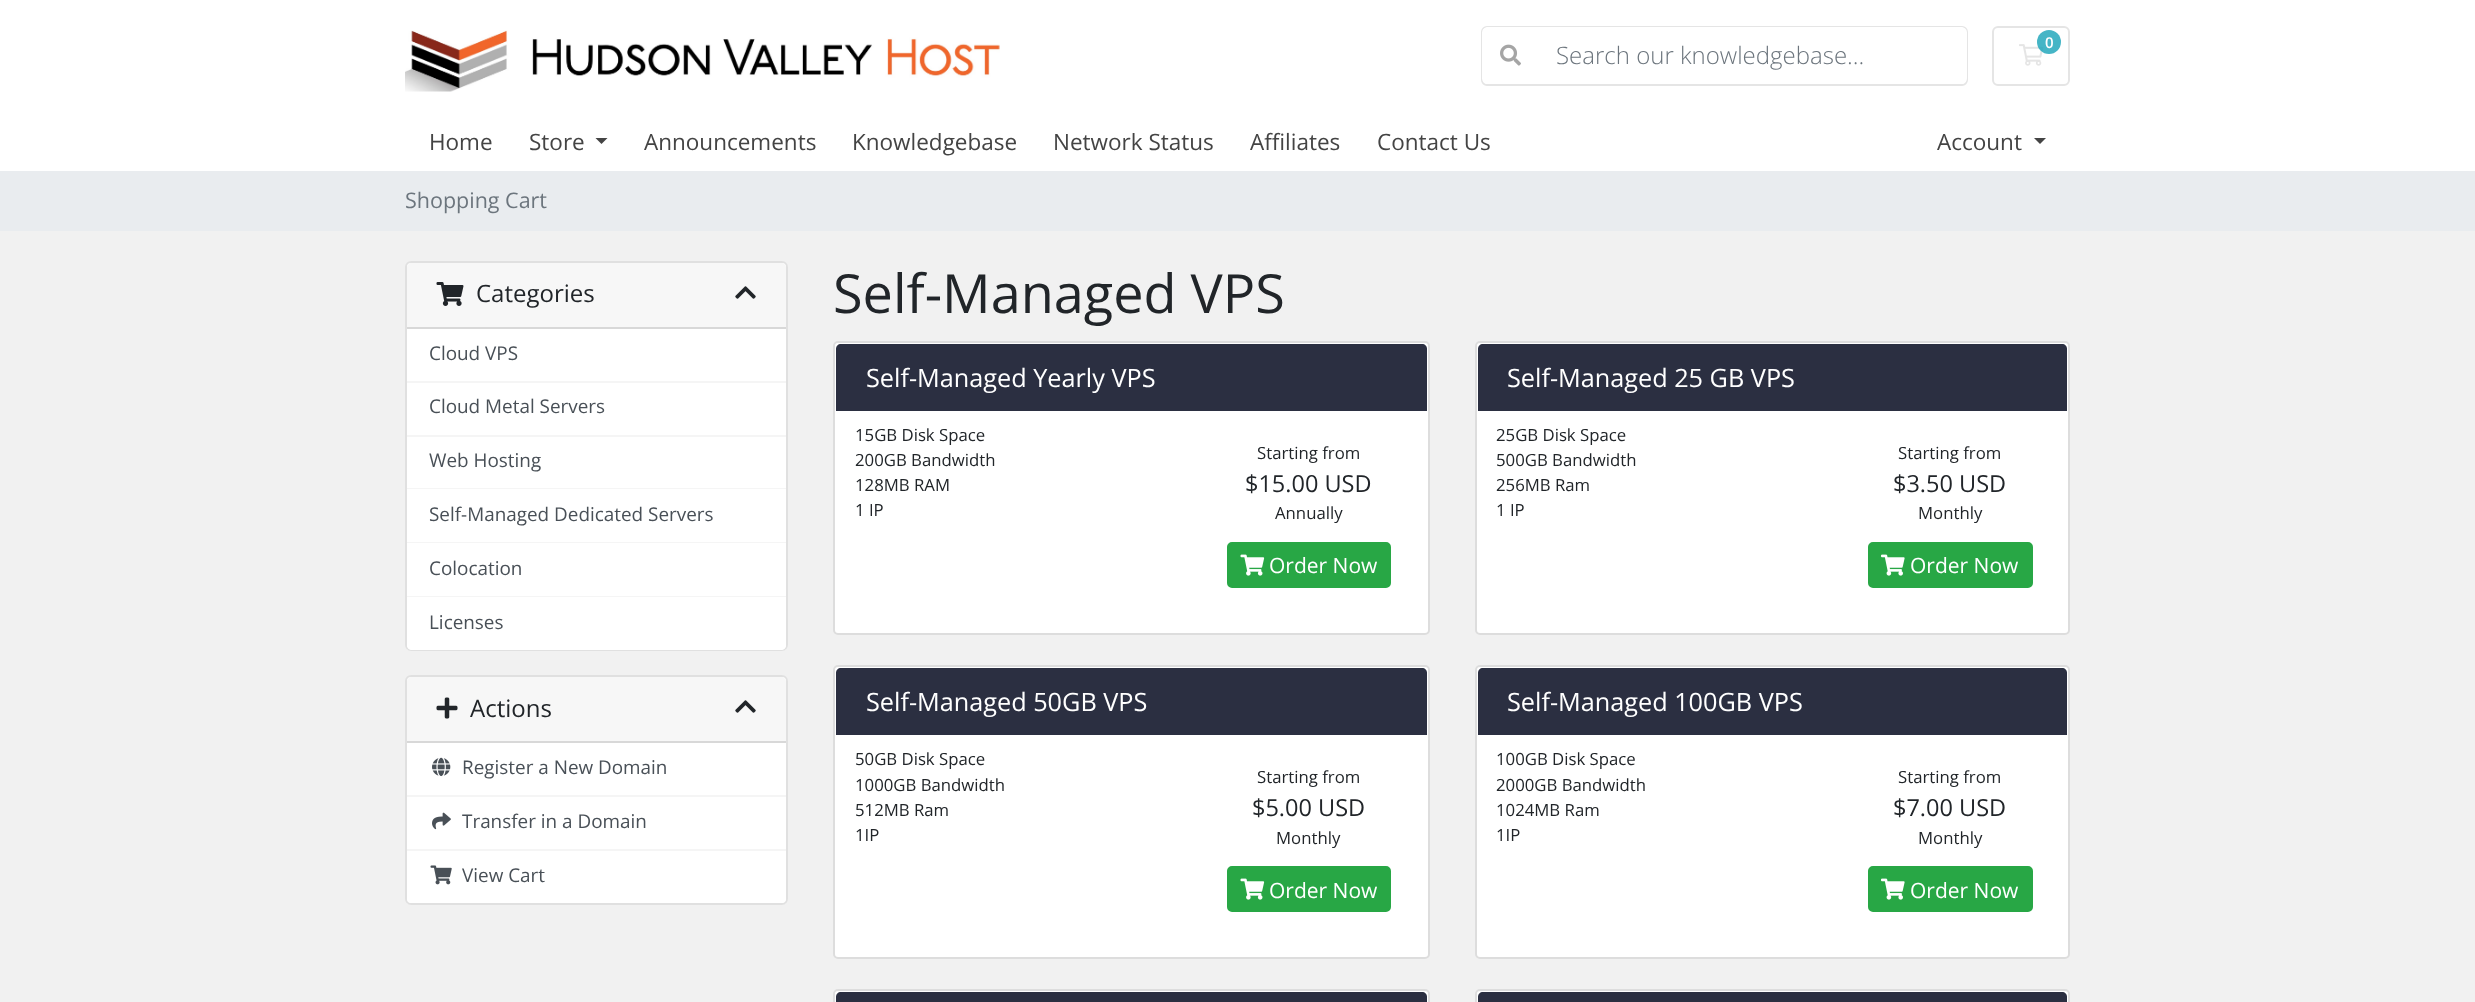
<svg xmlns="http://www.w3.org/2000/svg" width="2475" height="1002">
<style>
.a{font:600 15px Open Sans;fill:#fff}
.b{font:300 24px Open Sans;fill:#6c757d}
.c{font:22.5px Open Sans;fill:#444}
.d{font:21.5px Open Sans;fill:#6c757d}
.e{font:24px Open Sans;fill:#212529}
.f{font:18.9px Open Sans;fill:#495057}
.g{font:54px Open Sans;fill:#212529}
.h{font:25.25px Open Sans;fill:#fff}
.i{font:16.75px Open Sans;fill:#212529}
.j{font:23.5px Open Sans;fill:#212529}
.k{font:21px Open Sans;fill:#fff}
</style>
<rect width="100%" height="100%" fill="#f1f1f1"/>
<path fill="#fff" d="M0 0h2475v171H0z"/>
<image href="1.png" x="405" y="30" width="595" height="62"/>
<rect fill="none" stroke="#e5e5e5" stroke-width="2" x="1993" y="27" width="76" height="58" rx="5"/>
<image href="2.png" x="2019" y="44" width="25" height="22"/>
<circle fill="#17a2b8cc" cx="2049" cy="42" r="12"/>
<rect fill="none" stroke="#e5e5e5" stroke-width="2" x="1482" y="27" width="485" height="58" rx="5"/>
<path fill="#fff" d="M1538 27h423c3.5 0 6 2.5 6 6v45c0 3.5-2.5 6-6 6h-423z"/>
<path fill="#fff" d="M1488 27h51v57h-51c-3.5 0-6-2.5-6-6v-45c0-3.5 2.5-6 6-6z"/>
<image href="3.png" x="1500" y="44" width="21" height="22"/>
<path fill="#444" d="M595.5 138h12l-6 6z"/>
<path fill="#444" d="M2034 138h12l-6 6z"/>
<path fill="#e9ecef" d="M0 171h2475v60H0z"/>
<rect fill="#fff" x="405" y="261" width="383" height="390" rx="6"/>
<rect fill="none" stroke="#0000001f" stroke-width="2" x="406" y="262" width="381" height="388" rx="5"/>
<path fill="#f7f7f7" d="M412 263h369c3 0 5 2 5 5v61h-379v-61c0-3 2-5 5-5z"/>
<path fill="#d8d8d8" d="M407 327h379v2H407z"/>
<image href="4.png" x="436" y="282" width="28" height="24"/>
<image href="5.png" x="735" y="286" width="21" height="13"/>
<path fill="#f5f5f5" d="M407 381h379v2H407z"/>
<path fill="#f5f5f5" d="M407 435h379v2H407z"/>
<path fill="#f5f5f5" d="M407 488h379v1H407z"/>
<path fill="#f5f5f5" d="M407 542h379v1H407z"/>
<path fill="#f5f5f5" d="M407 596h379v1H407z"/>
<path fill="#fff" d="M407 597h379v48c0 3-2 5-5 5h-369c-3 0-5-2-5-5z"/>
<rect fill="#fff" x="405" y="675" width="383" height="230" rx="6"/>
<rect fill="none" stroke="#0000001f" stroke-width="2" x="406" y="676" width="381" height="228" rx="5"/>
<path fill="#f7f7f7" d="M412 677h369c3 0 5 2 5 5v61h-379v-61c0-3 2-5 5-5z"/>
<path fill="#d8d8d8" d="M407 741h379v2H407z"/>
<image href="6.png" x="436" y="697" width="22" height="22"/>
<image href="5.png" x="735" y="700" width="21" height="13"/>
<path fill="#f5f5f5" d="M407 795h379v2H407z"/>
<image href="7.png" x="432" y="757" width="19" height="20"/>
<path fill="#f5f5f5" d="M407 849h379v2H407z"/>
<image href="8.png" x="432" y="812" width="19" height="18"/>
<path fill="#fff" d="M407 851h379v47c0 3-2 5-5 5h-369c-3 0-5-2-5-5z"/>
<image href="9.png" x="430" y="865" width="22" height="20"/>
<rect fill="#fff" stroke="#ddd" stroke-width="2" x="834" y="342" width="595" height="292" rx="4"/>
<path fill="#2b2f41" d="M841 344h581c3 0 5 2 5 5v62h-591v-62c0-3 2-5 5-5z"/>
<rect fill="#28a745" stroke="#28a745" stroke-width="2" x="1228" y="543" width="162" height="44" rx="4"/>
<image href="10.png" x="1240" y="554" width="25" height="22"/>
<rect fill="#fff" stroke="#ddd" stroke-width="2" x="1476" y="342" width="593" height="292" rx="4"/>
<path fill="#2b2f41" d="M1483 344h579c3 0 5 2 5 5v62h-589v-62c0-3 2-5 5-5z"/>
<rect fill="#28a745" stroke="#28a745" stroke-width="2" x="1869" y="543" width="163" height="44" rx="4"/>
<image href="11.png" x="1881" y="554" width="24" height="22"/>
<rect fill="#fff" stroke="#ddd" stroke-width="2" x="834" y="666" width="595" height="292" rx="4"/>
<path fill="#2b2f41" d="M841 668h581c3 0 5 2 5 5v62h-591v-62c0-3 2-5 5-5z"/>
<rect fill="#28a745" stroke="#28a745" stroke-width="2" x="1228" y="867" width="162" height="44" rx="4"/>
<image href="10.png" x="1240" y="878" width="25" height="22"/>
<rect fill="#fff" stroke="#ddd" stroke-width="2" x="1476" y="666" width="593" height="292" rx="4"/>
<path fill="#2b2f41" d="M1483 668h579c3 0 5 2 5 5v62h-589v-62c0-3 2-5 5-5z"/>
<rect fill="#28a745" stroke="#28a745" stroke-width="2" x="1869" y="867" width="163" height="44" rx="4"/>
<image href="11.png" x="1881" y="878" width="24" height="22"/>
<rect fill="#fff" stroke="#ddd" stroke-width="2" x="834" y="990" width="595" height="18" rx="4"/>
<path fill="#2b2f41" d="M841 992h581c3 0 5 2 5 5v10h-591v-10c0-3 2-5 5-5z"/>
<rect fill="#fff" stroke="#ddd" stroke-width="2" x="1476" y="990" width="593" height="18" rx="4"/>
<path fill="#2b2f41" d="M1483 992h579c3 0 5 2 5 5v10h-589v-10c0-3 2-5 5-5z"/>
<text class="a" x="2045" y="48">0</text>
<text class="b" x="1556" y="64">Search our knowledgebase...</text>
<text class="c" x="429" y="150">Home</text>
<text class="c" x="529" y="150">Store</text>
<text class="c" x="644" y="150">Announcements</text>
<text class="c" x="852" y="150">Knowledgebase</text>
<text class="c" x="1053" y="150">Network Status</text>
<text class="c" x="1250" y="150">Affiliates</text>
<text class="c" x="1377" y="150">Contact Us</text>
<text class="c" x="1937" y="150">Account</text>
<text class="d" x="405" y="208">Shopping Cart</text>
<text class="e" x="476" y="302">Categories</text>
<text class="f" x="429" y="360">Cloud VPS</text>
<text class="f" x="429" y="413">Cloud Metal Servers</text>
<text class="f" x="429" y="467">Web Hosting</text>
<text class="f" x="429" y="521">Self-Managed Dedicated Servers</text>
<text class="f" x="429" y="575">Colocation</text>
<text class="f" x="429" y="629">Licenses</text>
<text class="e" x="470" y="717">Actions</text>
<text class="f" x="462" y="774">Register a New Domain</text>
<text class="f" x="462" y="828">Transfer in a Domain</text>
<text class="f" x="462" y="882">View Cart</text>
<text class="g" x="833" y="313">Self-Managed VPS</text>
<text class="h" x="866" y="387">Self-Managed Yearly VPS</text>
<text class="i" x="855" y="441">15GB Disk Space</text>
<text class="i" x="855" y="466">200GB Bandwidth</text>
<text class="i" x="855" y="491">128MB RAM</text>
<text class="i" x="855" y="516">1 IP</text>
<text class="i" x="1257" y="459">Starting from</text>
<text class="j" x="1245" y="492">$15.00 USD</text>
<text class="i" x="1275" y="519">Annually</text>
<text class="k" x="1269" y="573">Order Now</text>
<text class="h" x="1507" y="387">Self-Managed 25 GB VPS</text>
<text class="i" x="1496" y="441">25GB Disk Space</text>
<text class="i" x="1496" y="466">500GB Bandwidth</text>
<text class="i" x="1496" y="491">256MB Ram</text>
<text class="i" x="1496" y="516">1 IP</text>
<text class="i" x="1898" y="459">Starting from</text>
<text class="j" x="1893" y="492">$3.50 USD</text>
<text class="i" x="1918" y="519">Monthly</text>
<text class="k" x="1910" y="573">Order Now</text>
<text class="h" x="866" y="711">Self-Managed 50GB VPS</text>
<text class="i" x="855" y="765">50GB Disk Space</text>
<text class="i" x="855" y="791">1000GB Bandwidth</text>
<text class="i" x="855" y="816">512MB Ram</text>
<text class="i" x="855" y="841">1IP</text>
<text class="i" x="1257" y="783">Starting from</text>
<text class="j" x="1252" y="816">$5.00 USD</text>
<text class="i" x="1276" y="844">Monthly</text>
<text class="k" x="1269" y="898">Order Now</text>
<text class="h" x="1507" y="711">Self-Managed 100GB VPS</text>
<text class="i" x="1496" y="765">100GB Disk Space</text>
<text class="i" x="1496" y="791">2000GB Bandwidth</text>
<text class="i" x="1496" y="816">1024MB Ram</text>
<text class="i" x="1496" y="841">1IP</text>
<text class="i" x="1898" y="783">Starting from</text>
<text class="j" x="1893" y="816">$7.00 USD</text>
<text class="i" x="1918" y="844">Monthly</text>
<text class="k" x="1910" y="898">Order Now</text>
</svg>
